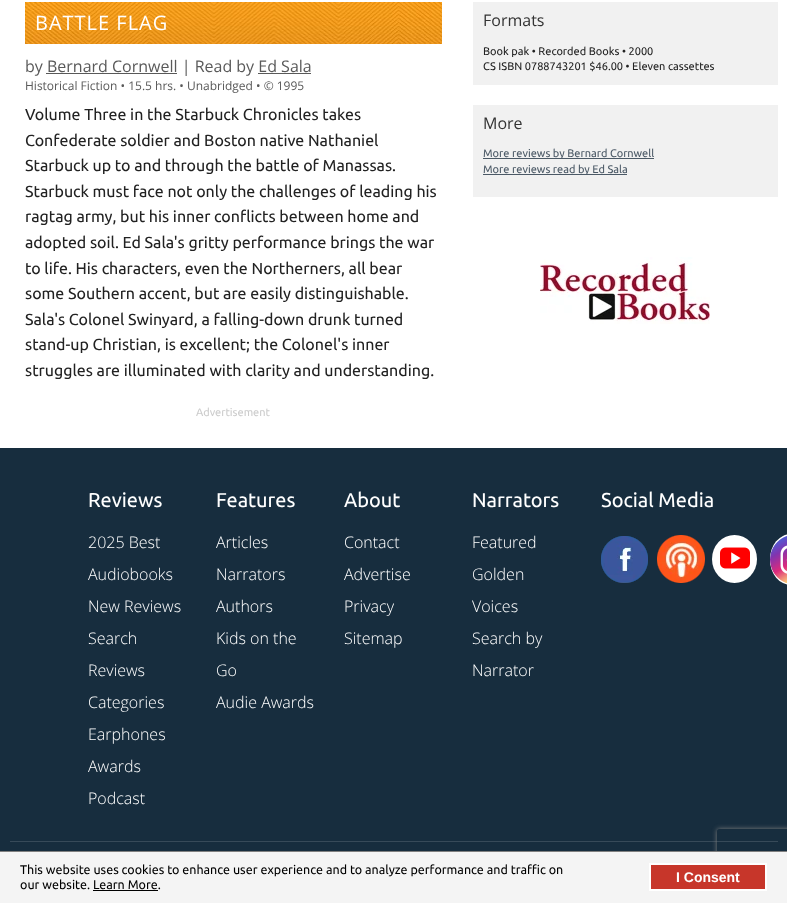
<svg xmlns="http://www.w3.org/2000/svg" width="787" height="903">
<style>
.a{font:20px Open Sans;letter-spacing:1px;fill:#fff}
.b{font:16px Open Sans;fill:#595959}
.c{font:12px Open Sans;fill:#595959}
.d{font:16px Ubuntu;fill:#222}
.e{font:11px Ubuntu;fill:#ccc}
.f{font:16px Open Sans;fill:#333}
.g{font:11px Ubuntu;fill:#222}
.h{font:11px Ubuntu;fill:#4b5966}
.i{font:20px Ubuntu;fill:#fff}
.j{font:300 16px Open Sans;fill:#fff}
.k{font:12.5px Ubuntu;fill:#000}
.l{font:bold 14px Liberation Sans;fill:#fff}
</style>
<defs>
<clipPath id="clip1"><path d="M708 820h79v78h-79zm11 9h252c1 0 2 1 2 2v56c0 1-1 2-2 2h-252c-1 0-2-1-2-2v-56c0-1 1-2 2-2z" clip-rule="evenodd"/></clipPath>
</defs>
<rect width="100%" height="100%" fill="#fff"/>
<image href="1.png" x="25" y="2" width="417" height="42"/>
<path fill="#595959" d="M46 73h131v1H46z"/>
<path fill="#595959" d="M258 73h53v1H258z"/>
<path fill="#f1f1f1" d="M473 2h305v83H473z"/>
<path fill="#f1f1f1" d="M473 105h305v92H473z"/>
<path fill="#4b5966" d="M483 158h171v1H483z"/>
<path fill="#4b5966" d="M483 174h144v1H483z"/>
<image href="2.png" x="540" y="257" width="170" height="67"/>
<path fill="#172d3e" d="M0 448h787v403H0z"/>
<image href="3.png" x="601" y="536" width="47" height="47"/>
<image href="4.png" x="657" y="535" width="48" height="48"/>
<ellipse fill="#fff" cx="734.5" cy="559" rx="22.5" ry="24"/>
<image href="5.png" x="720" y="547" width="30" height="22"/>
<rect fill="#fff" x="770" y="534" width="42" height="51" rx="25"/>
<image href="6.png" x="770" y="536" width="17" height="48"/>
<path fill="#374a59" d="M10 841h768v1H10z"/>
<g clip-path="url(#clip1)">
<rect fill="#808080" filter="blur(2.5px)" x="717" y="829" width="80" height="60" rx="2"/>
</g>
<path fill="#f4f4f4" d="M0 852h787v51H0z"/>
<path fill="#808080" d="M0 851h787v1H0z"/>
<path fill="#000" d="M93 890h65v1H93z"/>
<path fill="#c7362a" stroke="#fff" stroke-width="2" d="M650 864h116v26H650z"/>
<text class="a" x="35" y="30">BATTLE FLAG</text>
<text class="b" x="25" y="72">by Bernard Cornwell | Read by Ed Sala</text>
<text class="c" x="25" y="90">Historical Fiction • 15.5 hrs. • Unabridged • © 1995</text>
<text class="d" x="25" y="120">Volume Three in the Starbuck Chronicles takes</text>
<text class="d" x="25" y="146">Confederate soldier and Boston native Nathaniel</text>
<text class="d" x="25" y="171">Starbuck up to and through the battle of Manassas.</text>
<text class="d" x="25" y="197">Starbuck must face not only the challenges of leading his</text>
<text class="d" x="25" y="222">ragtag army, but his inner conflicts between home and</text>
<text class="d" x="25" y="248">adopted soil. Ed Sala's gritty performance brings the war</text>
<text class="d" x="25" y="274">to life. His characters, even the Northerners, all bear</text>
<text class="d" x="25" y="299">some Southern accent, but are easily distinguishable.</text>
<text class="d" x="25" y="325">Sala's Colonel Swinyard, a falling-down drunk turned</text>
<text class="d" x="25" y="350">stand-up Christian, is excellent; the Colonel's inner</text>
<text class="d" x="25" y="376">struggles are illuminated with clarity and understanding.</text>
<text class="e" x="196" y="416">Advertisement</text>
<text class="f" x="483" y="26">Formats</text>
<text class="g" x="483" y="55">Book pak • Recorded Books • 2000</text>
<text class="g" x="483" y="70">CS ISBN 0788743201 $46.00 • Eleven cassettes</text>
<text class="f" x="483" y="129">More</text>
<text class="h" x="483" y="157">More reviews by Bernard Cornwell</text>
<text class="h" x="483" y="173">More reviews read by Ed Sala</text>
<text class="i" x="88" y="507">Reviews</text>
<text class="j" x="88" y="548">2025 Best</text>
<text class="j" x="88" y="580">Audiobooks</text>
<text class="j" x="88" y="612">New Reviews</text>
<text class="j" x="88" y="644">Search</text>
<text class="j" x="88" y="676">Reviews</text>
<text class="j" x="88" y="708">Categories</text>
<text class="j" x="88" y="740">Earphones</text>
<text class="j" x="88" y="772">Awards</text>
<text class="j" x="88" y="804">Podcast</text>
<text class="i" x="216" y="507">Features</text>
<text class="j" x="216" y="548">Articles</text>
<text class="j" x="216" y="580">Narrators</text>
<text class="j" x="216" y="612">Authors</text>
<text class="j" x="216" y="644">Kids on the</text>
<text class="j" x="216" y="676">Go</text>
<text class="j" x="216" y="708">Audie Awards</text>
<text class="i" x="344" y="507">About</text>
<text class="j" x="344" y="548">Contact</text>
<text class="j" x="344" y="580">Advertise</text>
<text class="j" x="344" y="612">Privacy</text>
<text class="j" x="344" y="644">Sitemap</text>
<text class="i" x="472" y="507">Narrators</text>
<text class="j" x="472" y="548">Featured</text>
<text class="j" x="472" y="580">Golden</text>
<text class="j" x="472" y="612">Voices</text>
<text class="j" x="472" y="644">Search by</text>
<text class="j" x="472" y="676">Narrator</text>
<text class="i" x="601" y="507">Social Media</text>
<text class="k" x="20" y="874">This website uses cookies to enhance user experience and to analyze performance and traffic on</text>
<text class="k" x="20" y="889">our website. Learn More.</text>
<text class="l" x="676" y="882">I Consent</text>
</svg>
